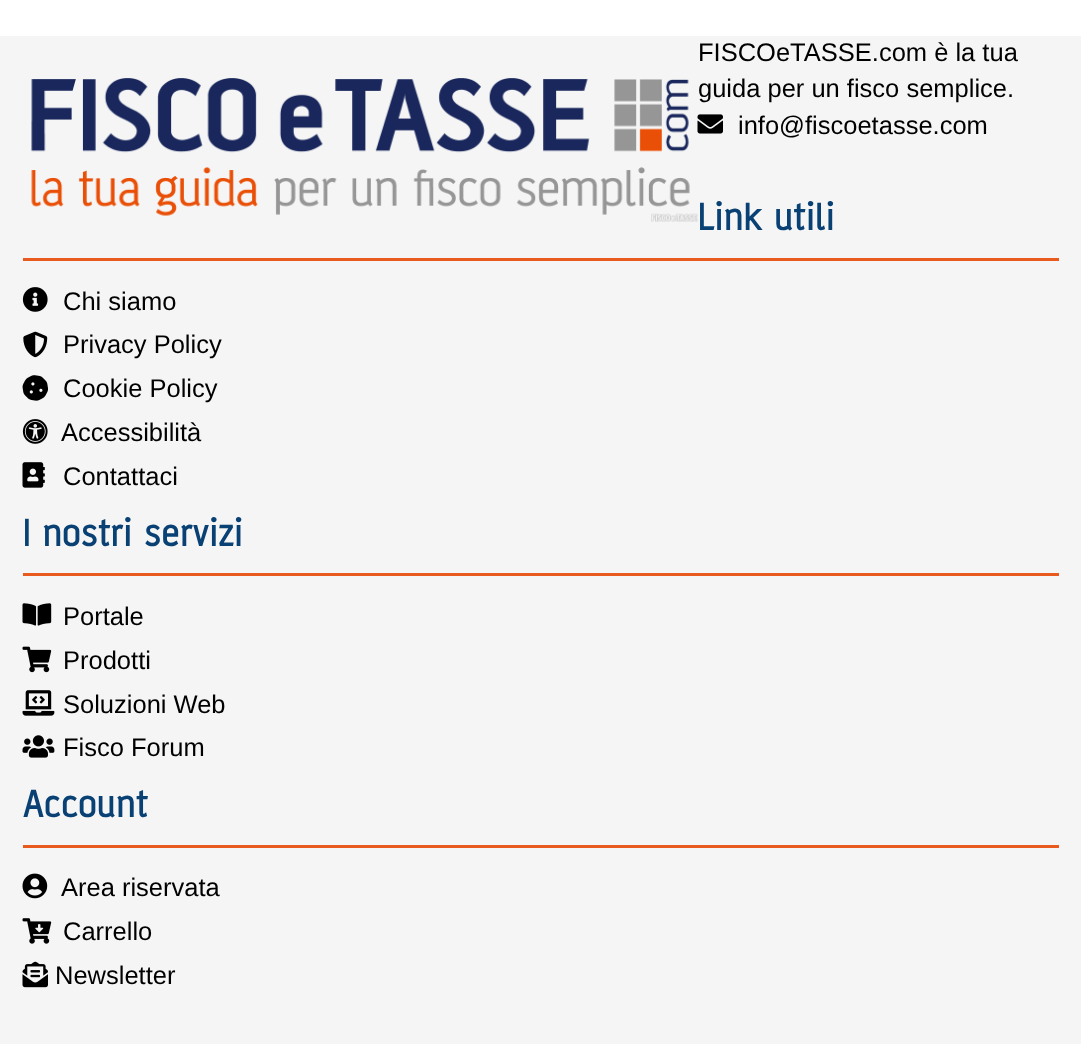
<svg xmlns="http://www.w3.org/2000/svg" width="1081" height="1044">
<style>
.a{font:25.5px Liberation Sans;fill:#000}
.b{font:bold 40.5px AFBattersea;letter-spacing:1.5px;fill:#094175}
</style>
<rect width="100%" height="100%" fill="#fff"/>
<path fill="#f5f5f5" d="M0 36h1081v1008H0z"/>
<image href="1.png" x="31" y="78" width="667" height="144"/>
<image href="2.png" x="697" y="114" width="26" height="20"/>
<path fill="#e95a1f" d="M23 258h1036v3H23z"/>
<image href="3.png" x="22" y="287" width="26" height="25"/>
<image href="4.png" x="23" y="331" width="25" height="27"/>
<image href="5.png" x="22" y="375" width="26" height="26"/>
<image href="6.png" x="22" y="419" width="26" height="25"/>
<image href="7.png" x="22" y="462" width="23" height="26"/>
<path fill="#e95a1f" d="M23 573h1036v3H23z"/>
<image href="8.png" x="22" y="603" width="30" height="23"/>
<image href="9.png" x="22" y="646" width="30" height="27"/>
<image href="10.png" x="22" y="690" width="33" height="26"/>
<image href="11.png" x="22" y="735" width="33" height="23"/>
<path fill="#e95a1f" d="M23 845h1036v3H23z"/>
<image href="12.png" x="22" y="873" width="26" height="26"/>
<image href="13.png" x="22" y="918" width="30" height="26"/>
<image href="14.png" x="22" y="961" width="26" height="27"/>
<text class="a" x="698" y="61">FISCOeTASSE.com è la tua</text>
<text class="a" x="698" y="97">guida per un fisco semplice.</text>
<text class="a" x="738" y="134">info@fiscoetasse.com</text>
<text class="b" x="698" y="230">Link utili</text>
<text class="a" x="63" y="310">Chi siamo</text>
<text class="a" x="63" y="353">Privacy Policy</text>
<text class="a" x="63" y="397">Cookie Policy</text>
<text class="a" x="61" y="441">Accessibilità</text>
<text class="a" x="63" y="485">Contattaci</text>
<text class="b" x="23" y="546">I nostri servizi</text>
<text class="a" x="63" y="625">Portale</text>
<text class="a" x="63" y="669">Prodotti</text>
<text class="a" x="63" y="713">Soluzioni Web</text>
<text class="a" x="63" y="756">Fisco Forum</text>
<text class="b" x="23" y="817">Account</text>
<text class="a" x="61" y="896">Area riservata</text>
<text class="a" x="63" y="940">Carrello</text>
<text class="a" x="55" y="984">Newsletter</text>
</svg>
